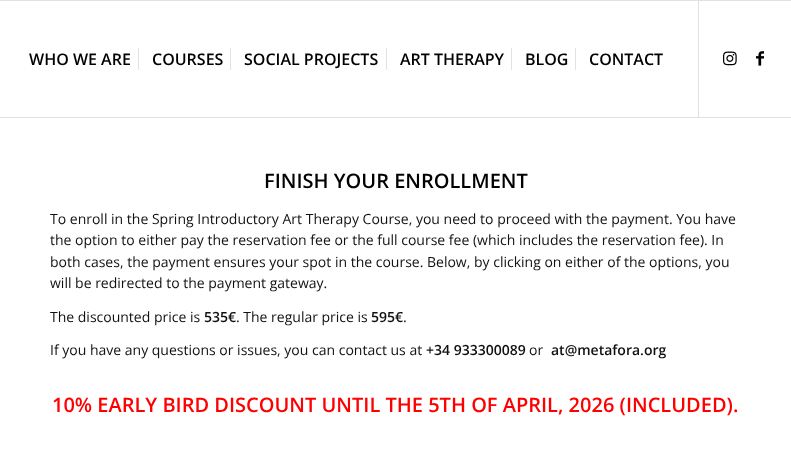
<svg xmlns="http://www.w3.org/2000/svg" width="791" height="456">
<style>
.a{font:600 16px Open Sans;fill:#000}
.b{font:600 20px Open Sans;fill:#000}
.c{font:14px Open Sans;fill:#111}
.d{font:600 14px Open Sans;fill:#111}
.e{font:600 20px Open Sans;fill:#f00}
</style>
<rect width="100%" height="100%" fill="#fff"/>
<path fill="#e1e1e1" d="M0 0h791v1H0z"/>
<path fill="#e1e1e1" d="M0 117h791v1H0z"/>
<path fill="#e1e1e1" d="M698 1h1v116H698z"/>
<path fill="#e1e1e1" d="M138 48h1v22H138z"/>
<path fill="#e1e1e1" d="M230 48h1v22H230z"/>
<path fill="#e1e1e1" d="M386 48h1v22H386z"/>
<path fill="#e1e1e1" d="M511 48h1v22H511z"/>
<path fill="#e1e1e1" d="M575 48h1v22H575z"/>
<image href="1.png" x="723" y="51" width="14" height="15"/>
<image href="2.png" x="756" y="51" width="8" height="15"/>
<text class="a" x="29" y="65">WHO WE ARE</text>
<text class="a" x="152" y="65">COURSES</text>
<text class="a" x="244" y="65">SOCIAL PROJECTS</text>
<text class="a" x="400" y="65">ART THERAPY</text>
<text class="a" x="525" y="65">BLOG</text>
<text class="a" x="589" y="65">CONTACT</text>
<text class="b" x="264" y="188">FINISH YOUR ENROLLMENT</text>
<text class="c" x="50" y="224">To enroll in the Spring Introductory Art Therapy Course, you need to proceed with the payment. You have</text>
<text class="c" x="50" y="245">the option to either pay the reservation fee or the full course fee (which includes the reservation fee). In</text>
<text class="c" x="50" y="267">both cases, the payment ensures your spot in the course. Below, by clicking on either of the options, you</text>
<text class="c" x="50" y="288">will be redirected to the payment gateway.</text>
<text class="c" x="50" y="322">The discounted price is</text>
<text class="d" x="204" y="322">535€</text>
<text class="c" x="236" y="322">. The regular price is</text>
<text class="d" x="371" y="322">595€</text>
<text class="c" x="403" y="322">.</text>
<text class="c" x="50" y="355">If you have any questions or issues, you can contact us at</text>
<text class="d" x="426" y="355">+34 933300089</text>
<text class="c" x="529" y="355">or</text>
<text class="d" x="551" y="355">at@metafora.org</text>
<text class="e" x="52" y="412">10% EARLY BIRD DISCOUNT UNTIL THE 5TH OF APRIL, 2026 (INCLUDED).</text>
</svg>
